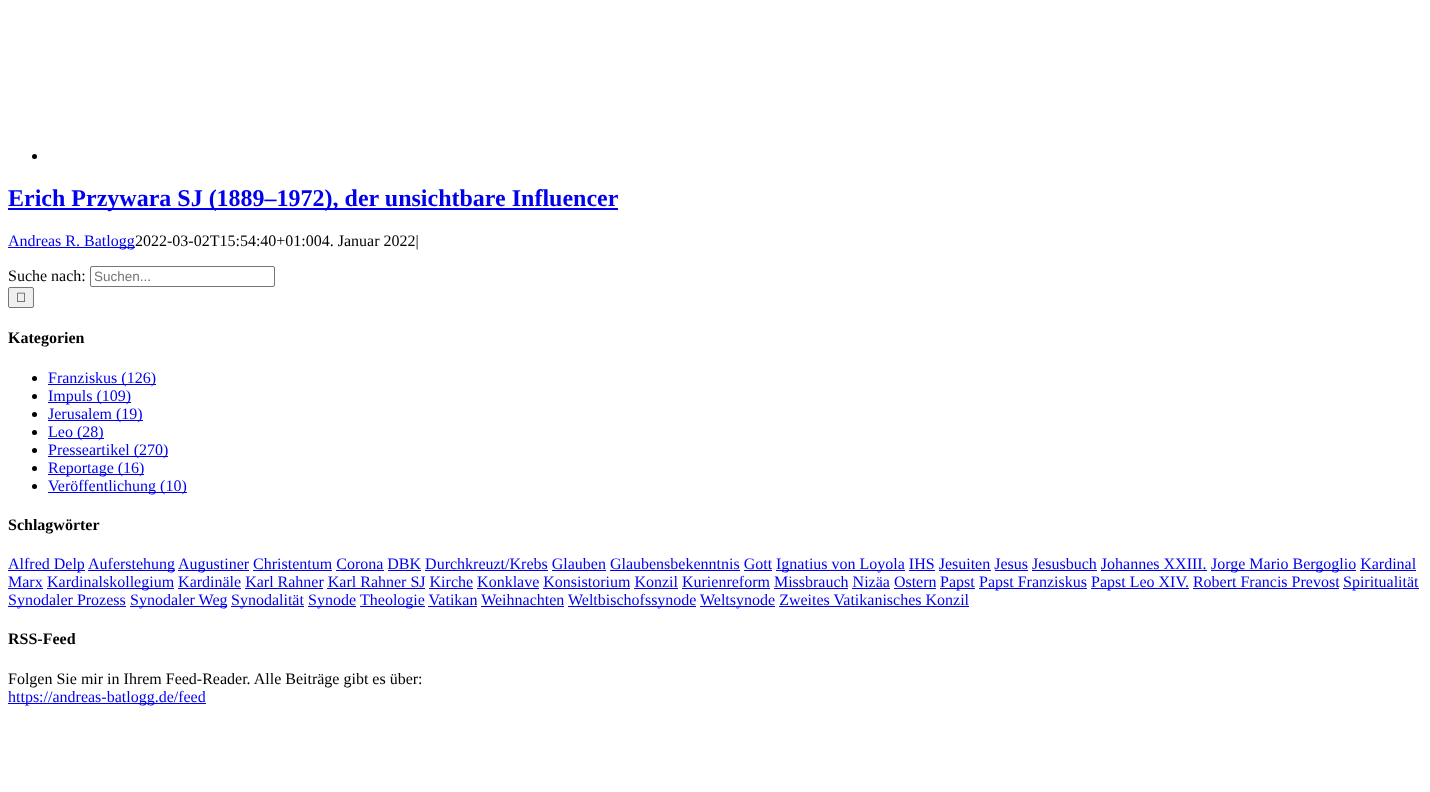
<svg xmlns="http://www.w3.org/2000/svg" width="1430" height="792">
<style>
.a{font:bold 24px Liberation Serif;fill:#00e}
.b{font:16px Liberation Serif;fill:#00e}
.c{font:16px Liberation Serif;fill:#000}
.d{font:13.5px Liberation Sans;fill:#757575}
.e{font:bold 16px Liberation Serif;fill:#000}
</style>
<rect width="100%" height="100%" fill="#fff"/>
<circle fill="#000" cx="34.5" cy="156.5" r="2.5"/>
<path fill="#00e" d="M8 208h610v2H8z"/>
<path fill="#00e" d="M8 247h127v1H8z"/>
<rect fill="none" stroke="#767676" x="90.5" y="266.5" width="184" height="20" rx="1.5"/>
<rect fill="#efefef" stroke="#767676" x="8.5" y="287.5" width="25" height="20" rx="1.5"/>
<image href="1.png" x="17" y="292" width="8" height="10"/>
<circle fill="#000" cx="34.5" cy="378.5" r="2.5"/>
<path fill="#00e" d="M48 384h108v1H48z"/>
<circle fill="#000" cx="34.5" cy="396.5" r="2.5"/>
<path fill="#00e" d="M48 402h83v1H48z"/>
<circle fill="#000" cx="34.5" cy="414.5" r="2.5"/>
<path fill="#00e" d="M48 420h95v1H48z"/>
<circle fill="#000" cx="34.5" cy="432.5" r="2.5"/>
<path fill="#00e" d="M48 438h56v1H48z"/>
<circle fill="#000" cx="34.5" cy="450.5" r="2.5"/>
<path fill="#00e" d="M48 456h120v1H48z"/>
<circle fill="#000" cx="34.5" cy="468.5" r="2.5"/>
<path fill="#00e" d="M48 474h96v1H48z"/>
<circle fill="#000" cx="34.5" cy="486.5" r="2.5"/>
<path fill="#00e" d="M48 492h139v1H48z"/>
<path fill="#00e" d="M8 570h77v1H8z"/>
<path fill="#00e" d="M88 570h87v1H88z"/>
<path fill="#00e" d="M178 570h71v1H178z"/>
<path fill="#00e" d="M776 570h129v1H776z"/>
<path fill="#00e" d="M1211 570h145v1H1211z"/>
<path fill="#00e" d="M253 570h79v1H253z"/>
<path fill="#00e" d="M336 570h48v1H336z"/>
<path fill="#00e" d="M388 570h33v1H388z"/>
<path fill="#00e" d="M425 570h123v1H425z"/>
<path fill="#00e" d="M552 570h54v1H552z"/>
<path fill="#00e" d="M610 570h130v1H610z"/>
<path fill="#00e" d="M744 570h28v1H744z"/>
<path fill="#00e" d="M909 570h26v1H909z"/>
<path fill="#00e" d="M939 570h52v1H939z"/>
<path fill="#00e" d="M995 570h33v1H995z"/>
<path fill="#00e" d="M1032 570h65v1H1032z"/>
<path fill="#00e" d="M1101 570h106v1H1101z"/>
<path fill="#00e" d="M1360 570h56v1H1360z"/>
<path fill="#00e" d="M8 588h35v1H8z"/>
<path fill="#00e" d="M47 588h127v1H47z"/>
<path fill="#00e" d="M940 588h35v1H940z"/>
<path fill="#00e" d="M979 588h108v1H979z"/>
<path fill="#00e" d="M1091 588h98v1H1091z"/>
<path fill="#00e" d="M1343 588h76v1H1343z"/>
<path fill="#00e" d="M178 588h63v1H178z"/>
<path fill="#00e" d="M245 588h78v1H245z"/>
<path fill="#00e" d="M327 588h98v1H327z"/>
<path fill="#00e" d="M429 588h44v1H429z"/>
<path fill="#00e" d="M477 588h62v1H477z"/>
<path fill="#00e" d="M543 588h87v1H543z"/>
<path fill="#00e" d="M634 588h44v1H634z"/>
<path fill="#00e" d="M682 588h88v1H682z"/>
<path fill="#00e" d="M774 588h74v1H774z"/>
<path fill="#00e" d="M852 588h38v1H852z"/>
<path fill="#00e" d="M894 588h42v1H894z"/>
<path fill="#00e" d="M1193 588h146v1H1193z"/>
<path fill="#00e" d="M8 606h118v1H8z"/>
<path fill="#00e" d="M130 606h97v1H130z"/>
<path fill="#00e" d="M231 606h73v1H231z"/>
<path fill="#00e" d="M308 606h48v1H308z"/>
<path fill="#00e" d="M360 606h65v1H360z"/>
<path fill="#00e" d="M568 606h128v1H568z"/>
<path fill="#00e" d="M700 606h75v1H700z"/>
<path fill="#00e" d="M428 606h49v1H428z"/>
<path fill="#00e" d="M481 606h83v1H481z"/>
<path fill="#00e" d="M779 606h190v1H779z"/>
<path fill="#00e" d="M8 703h198v1H8z"/>
<text class="a" x="8" y="206">Erich Przywara SJ (1889–1972), der unsichtbare Influencer</text>
<text class="b" x="8" y="246">Andreas R. Batlogg</text>
<text class="c" x="135" y="246">2022-03-02T15:54:40+01:004. Januar 2022|</text>
<text class="c" x="8" y="281">Suche nach:</text>
<text class="d" x="94" y="281">Suchen...</text>
<text class="e" x="8" y="343">Kategorien</text>
<text class="b" x="48" y="383">Franziskus (126)</text>
<text class="b" x="48" y="401">Impuls (109)</text>
<text class="b" x="48" y="419">Jerusalem (19)</text>
<text class="b" x="48" y="437">Leo (28)</text>
<text class="b" x="48" y="455">Presseartikel (270)</text>
<text class="b" x="48" y="473">Reportage (16)</text>
<text class="b" x="48" y="491">Veröffentlichung (10)</text>
<text class="e" x="8" y="530">Schlagwörter</text>
<text class="b" x="8" y="569">Alfred Delp</text>
<text class="b" x="88" y="569">Auferstehung</text>
<text class="b" x="178" y="569">Augustiner Christentum Corona DBK Durchkreuzt/Krebs Glauben Glaubensbekenntnis Gott</text>
<text class="b" x="776" y="569">Ignatius von Loyola IHS Jesuiten Jesus Jesusbuch Johannes XXIII.</text>
<text class="b" x="1211" y="569">Jorge Mario Bergoglio Kardinal</text>
<text class="b" x="8" y="587">Marx</text>
<text class="b" x="47" y="587">Kardinalskollegium Kardinäle Karl Rahner Karl Rahner SJ Kirche Konklave Konsistorium Konzil Kurienreform Missbrauch Nizäa Ostern</text>
<text class="b" x="940" y="587">Papst</text>
<text class="b" x="979" y="587">Papst Franziskus</text>
<text class="b" x="1091" y="587">Papst Leo XIV. Robert Francis Prevost</text>
<text class="b" x="1343" y="587">Spiritualität</text>
<text class="b" x="8" y="605">Synodaler Prozess</text>
<text class="b" x="130" y="605">Synodaler Weg</text>
<text class="b" x="231" y="605">Synodalität</text>
<text class="b" x="308" y="605">Synode</text>
<text class="b" x="360" y="605">Theologie Vatikan Weihnachten</text>
<text class="b" x="568" y="605">Weltbischofssynode</text>
<text class="b" x="700" y="605">Weltsynode Zweites Vatikanisches Konzil</text>
<text class="e" x="8" y="644">RSS-Feed</text>
<text class="c" x="8" y="684">Folgen Sie mir in Ihrem Feed-Reader. Alle Beiträge gibt es über:</text>
<text class="b" x="8" y="702">https://andreas-batlogg.de/feed</text>
</svg>
